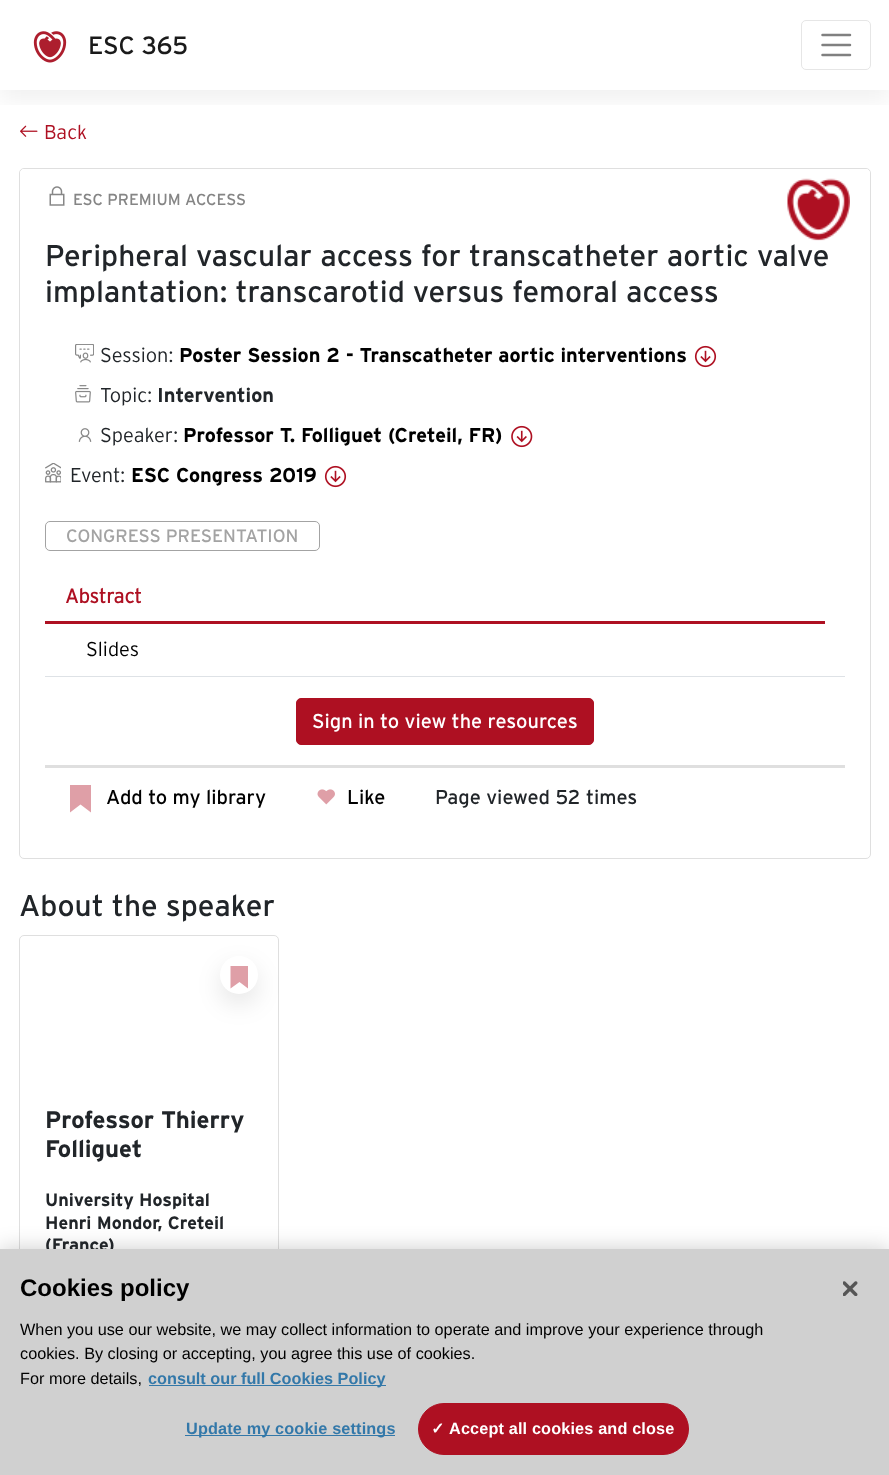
<svg xmlns="http://www.w3.org/2000/svg" width="889" height="1475">
<style>
.a{font:25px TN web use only;fill:#1a1a1a}
.b{font:300 20px TN web use only;fill:#ae1022}
.c{font:16px TN web use only;fill:#858585}
.d{font:30px TN web use only;fill:#212529}
.e{font:300 20px TN web use only;fill:#212529}
.f{font:bold 20px 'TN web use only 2';fill:#000}
.g{font:bold 20px 'TN web use only 2';fill:#212529}
.h{font:18px TN web use only;fill:#a3a3a3}
.i{font:bold 20px TN web use only;fill:#ae1022}
.j{font:300 20px TN web use only;fill:#000}
.k{font:20px TN web use only;fill:#fff}
.l{font:20px TN web use only;fill:#000}
.m{font:20px TN web use only;fill:#212529}
.n{font:bold 24px 'TN web use only 2';fill:#212529}
.o{font:bold 18px 'TN web use only 2';fill:#212529}
.p{font:bold 24px Liberation Sans;fill:#000}
.q{font:16.25px Liberation Sans;fill:#000}
.r{font:bold 16.25px Liberation Sans;fill:#3378a9}
.s{font:bold 16.25px Liberation Sans;letter-spacing:0.15px;fill:#3378a9}
.t{font:bold 16px DejaVu Sans;letter-spacing:0.15px;fill:#fff}
.u{font:bold 16.25px Liberation Sans;letter-spacing:0.15px;fill:#fff}
</style>
<defs>
<clipPath id="clip1"><path d="M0 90h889v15H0z"/></clipPath>
</defs>
<rect width="100%" height="100%" fill="#fff"/>
<image href="2.png" x="20" y="125" width="18" height="12"/>
<g clip-path="url(#clip1)">
<path fill="#0000000f" filter="blur(12.5px)" d="M0 10h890v90H0z"/>
</g>
<image href="1.png" x="33" y="31" width="34" height="32"/>
<rect fill="none" stroke="#e6e6e6" x="801.5" y="20.5" width="69" height="49" rx="4.5"/>
<path fill="none" stroke="#808080" stroke-width="2.5" stroke-linecap="round" d="M822.5 35h27.5m-27.5 10h27.5m-27.5 10h27.5"/>
<rect fill="none" stroke="#dfdfdf" x="19.5" y="168.5" width="851" height="690" rx="4.5"/>
<path fill="#fff" d="M24 169h842c2 0 4 2 4 4v41h-850v-41c0-2 2-4 4-4z"/>
<image href="3.png" x="49" y="186" width="16" height="20"/>
<image href="4.png" x="787" y="178" width="63" height="63"/>
<image href="5.png" x="75" y="344" width="19" height="19"/>
<image href="6.png" x="694" y="345" width="23" height="23"/>
<image href="7.png" x="75" y="385" width="16" height="18"/>
<image href="8.png" x="78" y="428" width="14" height="14"/>
<image href="9.png" x="511" y="425" width="22" height="23"/>
<image href="10.png" x="45" y="463" width="16" height="20"/>
<image href="6.png" x="324" y="465" width="23" height="23"/>
<rect fill="none" stroke="#a3a3a3" x="45.5" y="521.5" width="274" height="29" rx="4.5"/>
<path fill="#dee2e6" d="M45 676h800v1H45z"/>
<path fill="#ae1022" d="M45 621h780v3H45z"/>
<rect fill="#ae1022" stroke="#ae1022" x="296.5" y="698.5" width="297" height="46" rx="4.5"/>
<path fill="#dfdfdf" d="M45 765h800v3H45z"/>
<path fill="#df9fa7" d="M70 785v27.5l10.5-8l10.5 8v-27.5z"/>
<image href="11.png" x="317" y="789" width="18" height="16"/>
<rect fill="none" stroke="#dfdfdf" x="19.5" y="935.5" width="259" height="497" rx="4.5"/>
<rect fill="#0000001a" filter="blur(12.5px)" x="220" y="966" width="38" height="38" rx="19"/>
<circle fill="#fff" cx="239" cy="975" r="19"/>
<path fill="#df9fa7" d="M230.5 966v22.5l9-6.5l8.5 6.5v-22.5z"/>
<path fill="#00000033" filter="blur(11px)" d="M0 1249h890v226H0z"/>
<text class="a" x="88" y="54">ESC 365</text>
<text class="b" x="44" y="139">Back</text>
<text class="c" x="73" y="205">ESC PREMIUM ACCESS</text>
<text class="d" x="45" y="266">Peripheral vascular access for transcatheter aortic valve</text>
<text class="d" x="45" y="302">implantation: transcarotid versus femoral access</text>
<text class="e" x="100" y="362">Session:</text>
<text class="f" x="179" y="362">Poster Session 2 - Transcatheter aortic interventions</text>
<text class="e" x="100" y="402">Topic:</text>
<text class="g" x="157" y="402">Intervention</text>
<text class="e" x="100" y="442">Speaker:</text>
<text class="f" x="183" y="442">Professor T. Folliguet (Creteil, FR)</text>
<text class="e" x="70" y="482">Event:</text>
<text class="f" x="131" y="482">ESC Congress 2019</text>
<text class="h" x="66" y="542">CONGRESS PRESENTATION</text>
<text class="i" x="65" y="603">Abstract</text>
<text class="j" x="86" y="656">Slides</text>
<text class="k" x="312" y="728">Sign in to view the resources</text>
<text class="l" x="106" y="804">Add to my library</text>
<text class="l" x="347" y="804">Like</text>
<text class="m" x="435" y="804">Page viewed 52 times</text>
<text class="d" x="19" y="916">About the speaker</text>
<text class="n" x="45" y="1128">Professor Thierry</text>
<text class="n" x="45" y="1157">Folliguet</text>
<text class="o" x="45" y="1206">University Hospital</text>
<text class="o" x="45" y="1229">Henri Mondor, Creteil</text>
<text class="o" x="45" y="1251">(France)</text>
<path fill="#d0d0d0" d="M0 1249h889v226H0z"/>
<text class="p" x="20" y="1296">Cookies policy</text>
<text class="q" x="20" y="1335">When you use our website, we may collect information to operate and improve your experience through</text>
<text class="q" x="20" y="1359">cookies. By closing or accepting, you agree this use of cookies.</text>
<text class="q" x="20" y="1384">For more details,</text>
<path fill="#3378a9" d="M149 1385h237v1H149z"/>
<text class="r" x="148" y="1384">consult our full Cookies Policy</text>
<path fill="#3378a9" d="M185 1435h210v1H185z"/>
<text class="s" x="186" y="1434">Update my cookie settings</text>
<rect fill="#ae1022" stroke="#ae1022" x="418.5" y="1403.5" width="270" height="51" rx="25.5"/>
<text class="t" x="431" y="1434">✓</text>
<text class="u" x="449" y="1434">Accept all cookies and close</text>
<image href="12.png" x="843" y="1281" width="15" height="15"/>
</svg>
